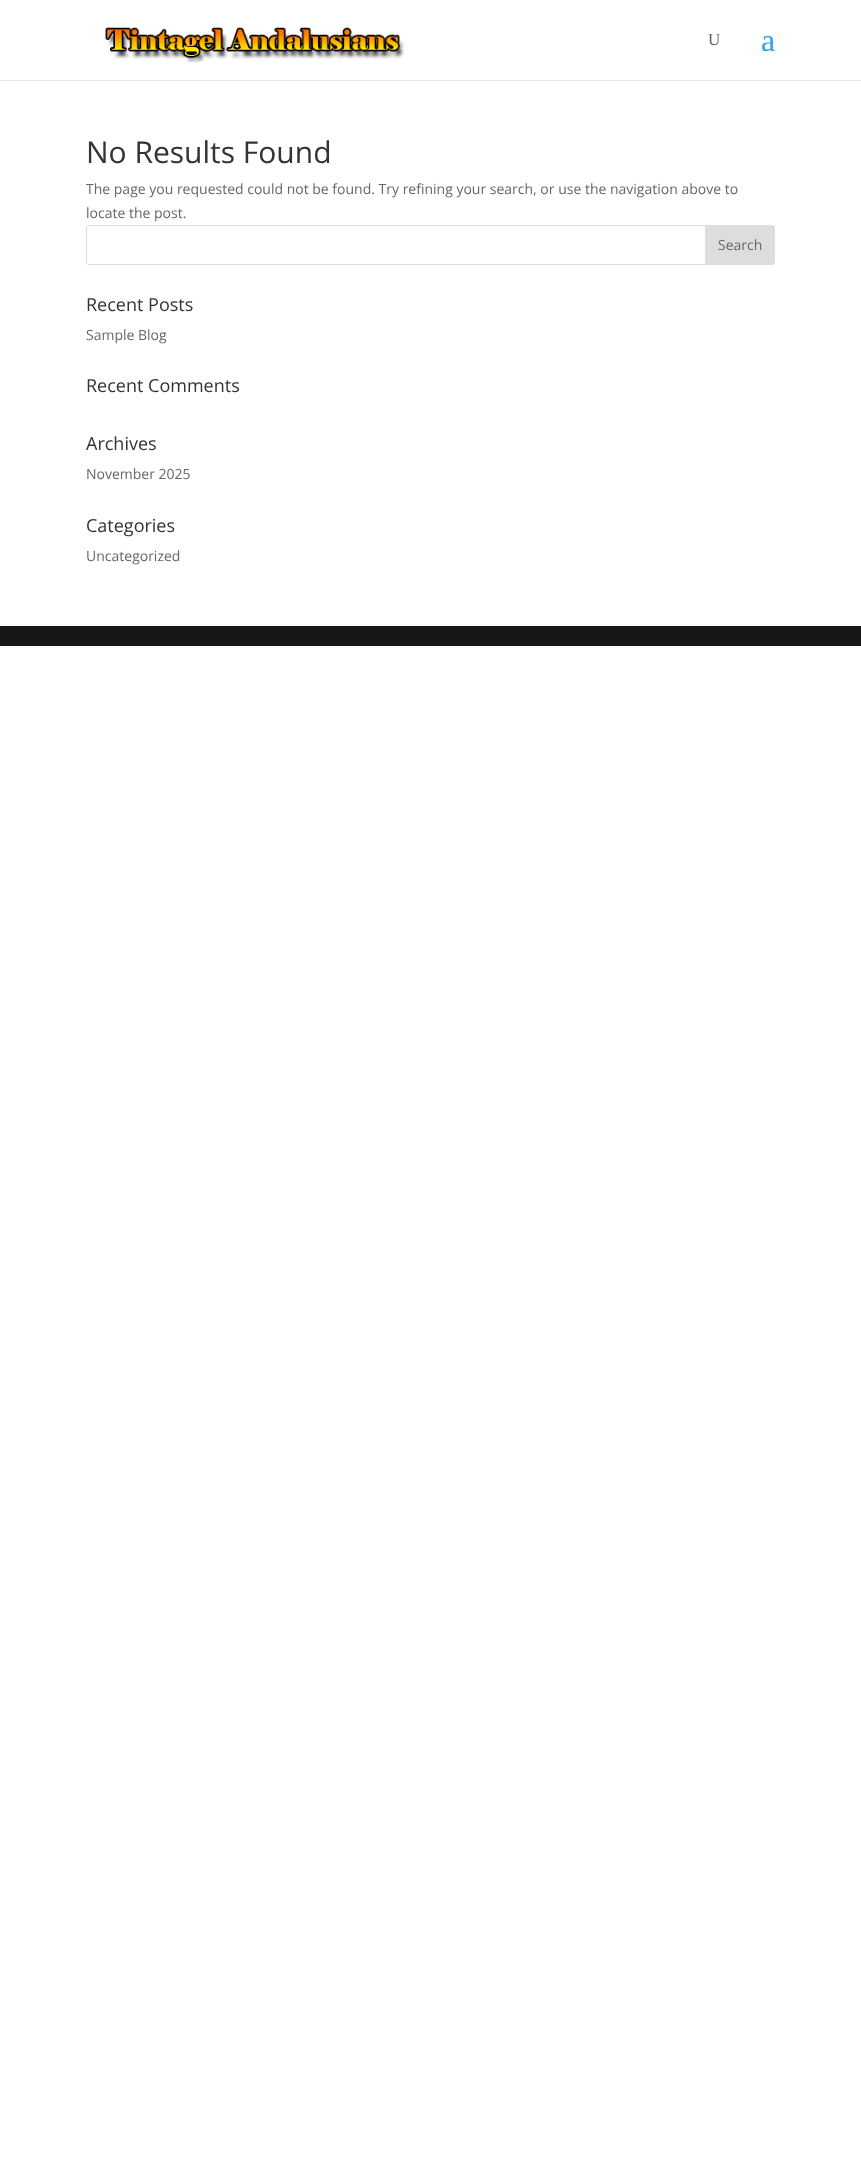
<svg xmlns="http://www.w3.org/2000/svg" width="861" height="2169">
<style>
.a{font:17px Liberation Serif;fill:#666}
.b{font:32px Liberation Serif;fill:#2ea3f2}
.c{font:30px Open Sans;fill:#333}
.d{font:14px Open Sans;fill:#666}
.e{font:18px Open Sans;fill:#333}
</style>
<rect width="100%" height="100%" fill="#fff"/>
<path fill="#e6e6e6" d="M0 80h861v1H0z"/>
<image href="1.png" x="105" y="27" width="300" height="35"/>
<rect fill="none" stroke="#ddd" x="86.5" y="225.5" width="688" height="39" rx="2.5"/>
<path fill="#ddd" stroke="#ddd" d="M705.5 225.5h66.5c1.5 0 2.5 1 2.5 2.5v34c0 1.5-1 2.5-2.5 2.5h-66.5z"/>
<path fill="#171717" d="M0 626h861v20H0z"/>
<text class="a" x="708" y="45">U</text>
<text class="b" x="761" y="51">a</text>
<text class="c" x="86" y="163">No Results Found</text>
<text class="d" x="86" y="194">The page you requested could not be found. Try refining your search, or use the navigation above to</text>
<text class="d" x="86" y="218">locate the post.</text>
<text class="d" x="718" y="250">Search</text>
<text class="e" x="86" y="311">Recent Posts</text>
<text class="d" x="86" y="340">Sample Blog</text>
<text class="e" x="86" y="392">Recent Comments</text>
<text class="e" x="86" y="450">Archives</text>
<text class="d" x="86" y="479">November 2025</text>
<text class="e" x="86" y="532">Categories</text>
<text class="d" x="86" y="561">Uncategorized</text>
</svg>
